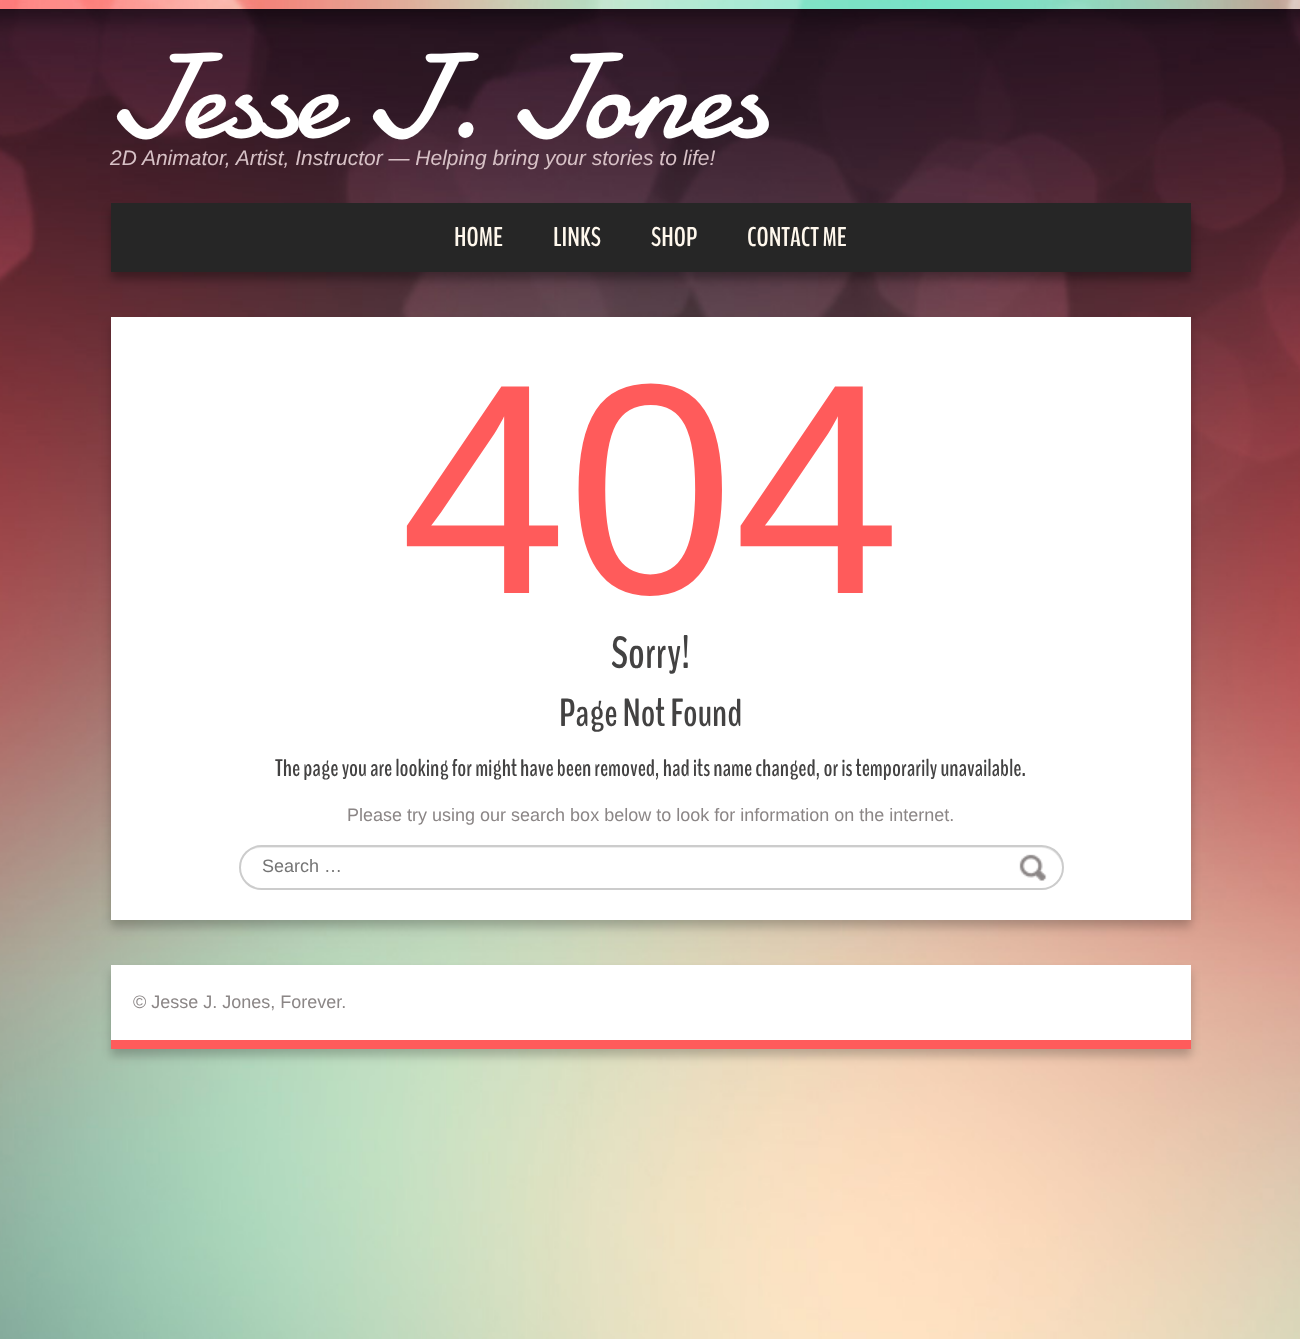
<svg xmlns="http://www.w3.org/2000/svg" width="1300" height="1339">
<style>
.a{font:120px Damion;fill:#fff}
.b{font:italic 21px Liberation Sans;fill:#d7c1c6}
.c{font:bold 27px BenchNine;fill:#fff8ed}
.d{font:300px Liberation Sans;fill:#ff5b5b}
.e{font:bold 45px BenchNine;fill:#434242}
.f{font:bold 39px BenchNine;fill:#434242}
.g{font:bold 24px BenchNine;fill:#434242}
.h{font:18px Liberation Sans;fill:#8b8686}
.i{font:18px Liberation Sans;fill:#757575}
</style>
<rect width="100%" height="100%" fill="#fff"/>
<image href="1.png" x="0" y="9" width="1300" height="1330"/>
<image href="2.png" x="0" y="0" width="1300" height="9"/>
<path fill="#00000054" filter="blur(5px)" d="M111 210h1080v69H111z"/>
<path fill="#262626" d="M111 203h1080v69H111z"/>
<path fill="#00000038" filter="blur(5px)" d="M111 324h1080v603H111z"/>
<path fill="#fff" d="M111 317h1080v603H111z"/>
<path fill="#ececec" d="M261 848h780c11 0 19 8 21 18c0-11-10-20-21-20h-780c-12 0-21 9-21 21v1c0-10 7-20 21-20z"/>
<rect fill="none" stroke="#ccc" stroke-width="2" x="240" y="846" width="823" height="43" rx="21.5"/>
<image href="3.png" x="1019" y="854" width="28" height="27"/>
<path fill="#00000038" filter="blur(5px)" d="M111 972h1080v84H111z"/>
<path fill="#fff" d="M111 965h1080v75H111z"/>
<path fill="#ff5b5b" d="M111 1040h1080v9H111z"/>
<text class="a" x="110" y="137">Jesse J. Jones</text>
<text class="b" x="110" y="165">2D Animator, Artist, Instructor — Helping bring your stories to life!</text>
<text class="c" x="454" y="246">HOME</text>
<text class="c" x="553" y="246">LINKS</text>
<text class="c" x="651" y="246">SHOP</text>
<text class="c" x="747" y="246">CONTACT ME</text>
<text class="d" x="400" y="593">404</text>
<text class="e" x="611" y="668">Sorry!</text>
<text class="f" x="559" y="726">Page Not Found</text>
<text class="g" x="275" y="776">The page you are looking for might have been removed, had its name changed, or is temporarily unavailable.</text>
<text class="h" x="347" y="821">Please try using our search box below to look for information on the internet.</text>
<text class="i" x="262" y="872">Search …</text>
<text class="h" x="133" y="1008">© Jesse J. Jones, Forever.</text>
</svg>
